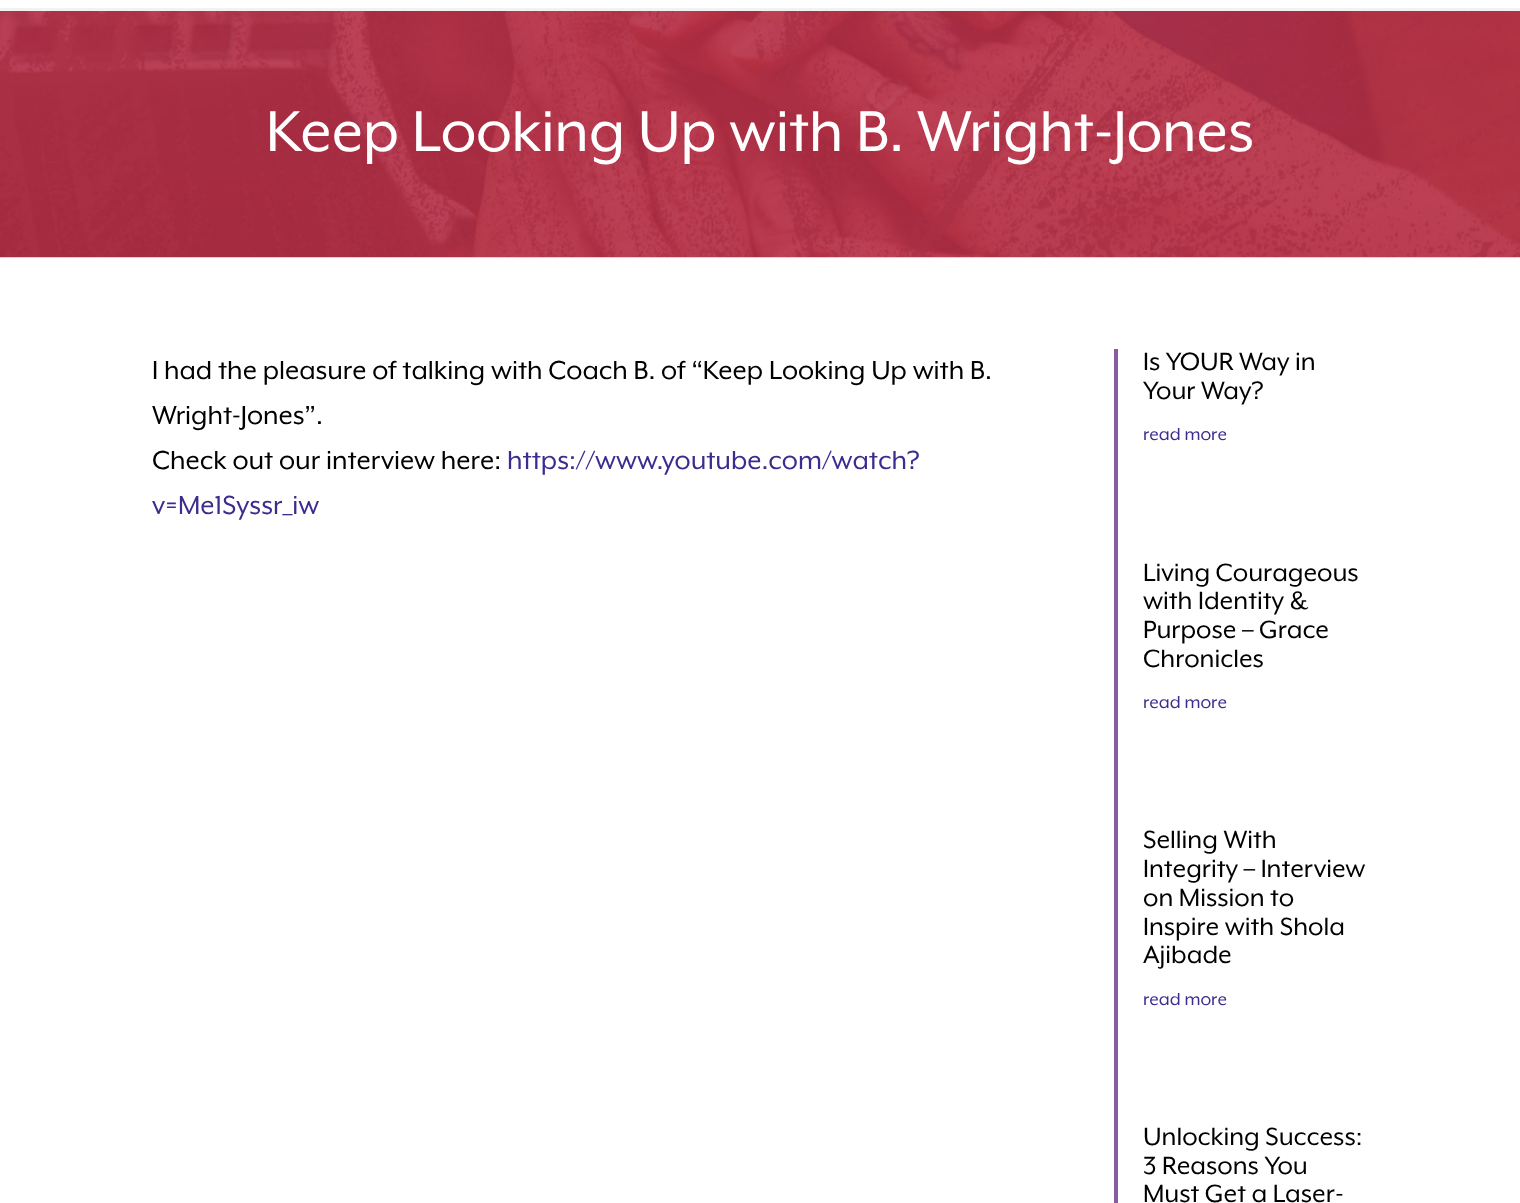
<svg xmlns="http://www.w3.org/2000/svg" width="1520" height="1203">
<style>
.a{font:66.25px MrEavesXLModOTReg;fill:#fff}
.b{font:30px MrEavesXLModOTReg;fill:#000}
.c{font:30px MrEavesXLModOTReg;fill:#3b2d8e}
.d{font:28.75px MrEavesXLModOTReg;fill:#000}
.e{font:20px MrEavesXLModOTReg;fill:#3b2d8e}
</style>
<rect width="100%" height="100%" fill="#fff"/>
<path fill="#f2f2f2" d="M0 8h1520v3H0z"/>
<image href="1.png" x="0" y="11" width="1520" height="247"/>
<path fill="#8b5ba2" d="M1114 349h4v854H1114z"/>
<text class="a" x="266" y="151">Keep Looking Up with B. Wright-Jones</text>
<text class="b" x="152" y="379">I had the pleasure of talking with Coach B. of “Keep Looking Up with B.</text>
<text class="b" x="152" y="424">Wright-Jones”.</text>
<text class="b" x="152" y="469">Check out our interview here:</text>
<text class="c" x="507" y="469">https://www.youtube.com/watch?</text>
<text class="c" x="152" y="514">v=Me1Syssr_iw</text>
<text class="d" x="1143" y="370">Is YOUR Way in</text>
<text class="d" x="1143" y="399">Your Way?</text>
<text class="e" x="1143" y="440">read more</text>
<text class="d" x="1143" y="581">Living Courageous</text>
<text class="d" x="1143" y="609">with Identity &amp;</text>
<text class="d" x="1143" y="638">Purpose – Grace</text>
<text class="d" x="1143" y="667">Chronicles</text>
<text class="e" x="1143" y="708">read more</text>
<text class="d" x="1143" y="848">Selling With</text>
<text class="d" x="1143" y="877">Integrity – Interview</text>
<text class="d" x="1143" y="906">on Mission to</text>
<text class="d" x="1143" y="935">Inspire with Shola</text>
<text class="d" x="1143" y="963">Ajibade</text>
<text class="e" x="1143" y="1005">read more</text>
<text class="d" x="1143" y="1145">Unlocking Success:</text>
<text class="d" x="1143" y="1174">3 Reasons You</text>
<text class="d" x="1143" y="1202">Must Get a Laser-</text>
</svg>
